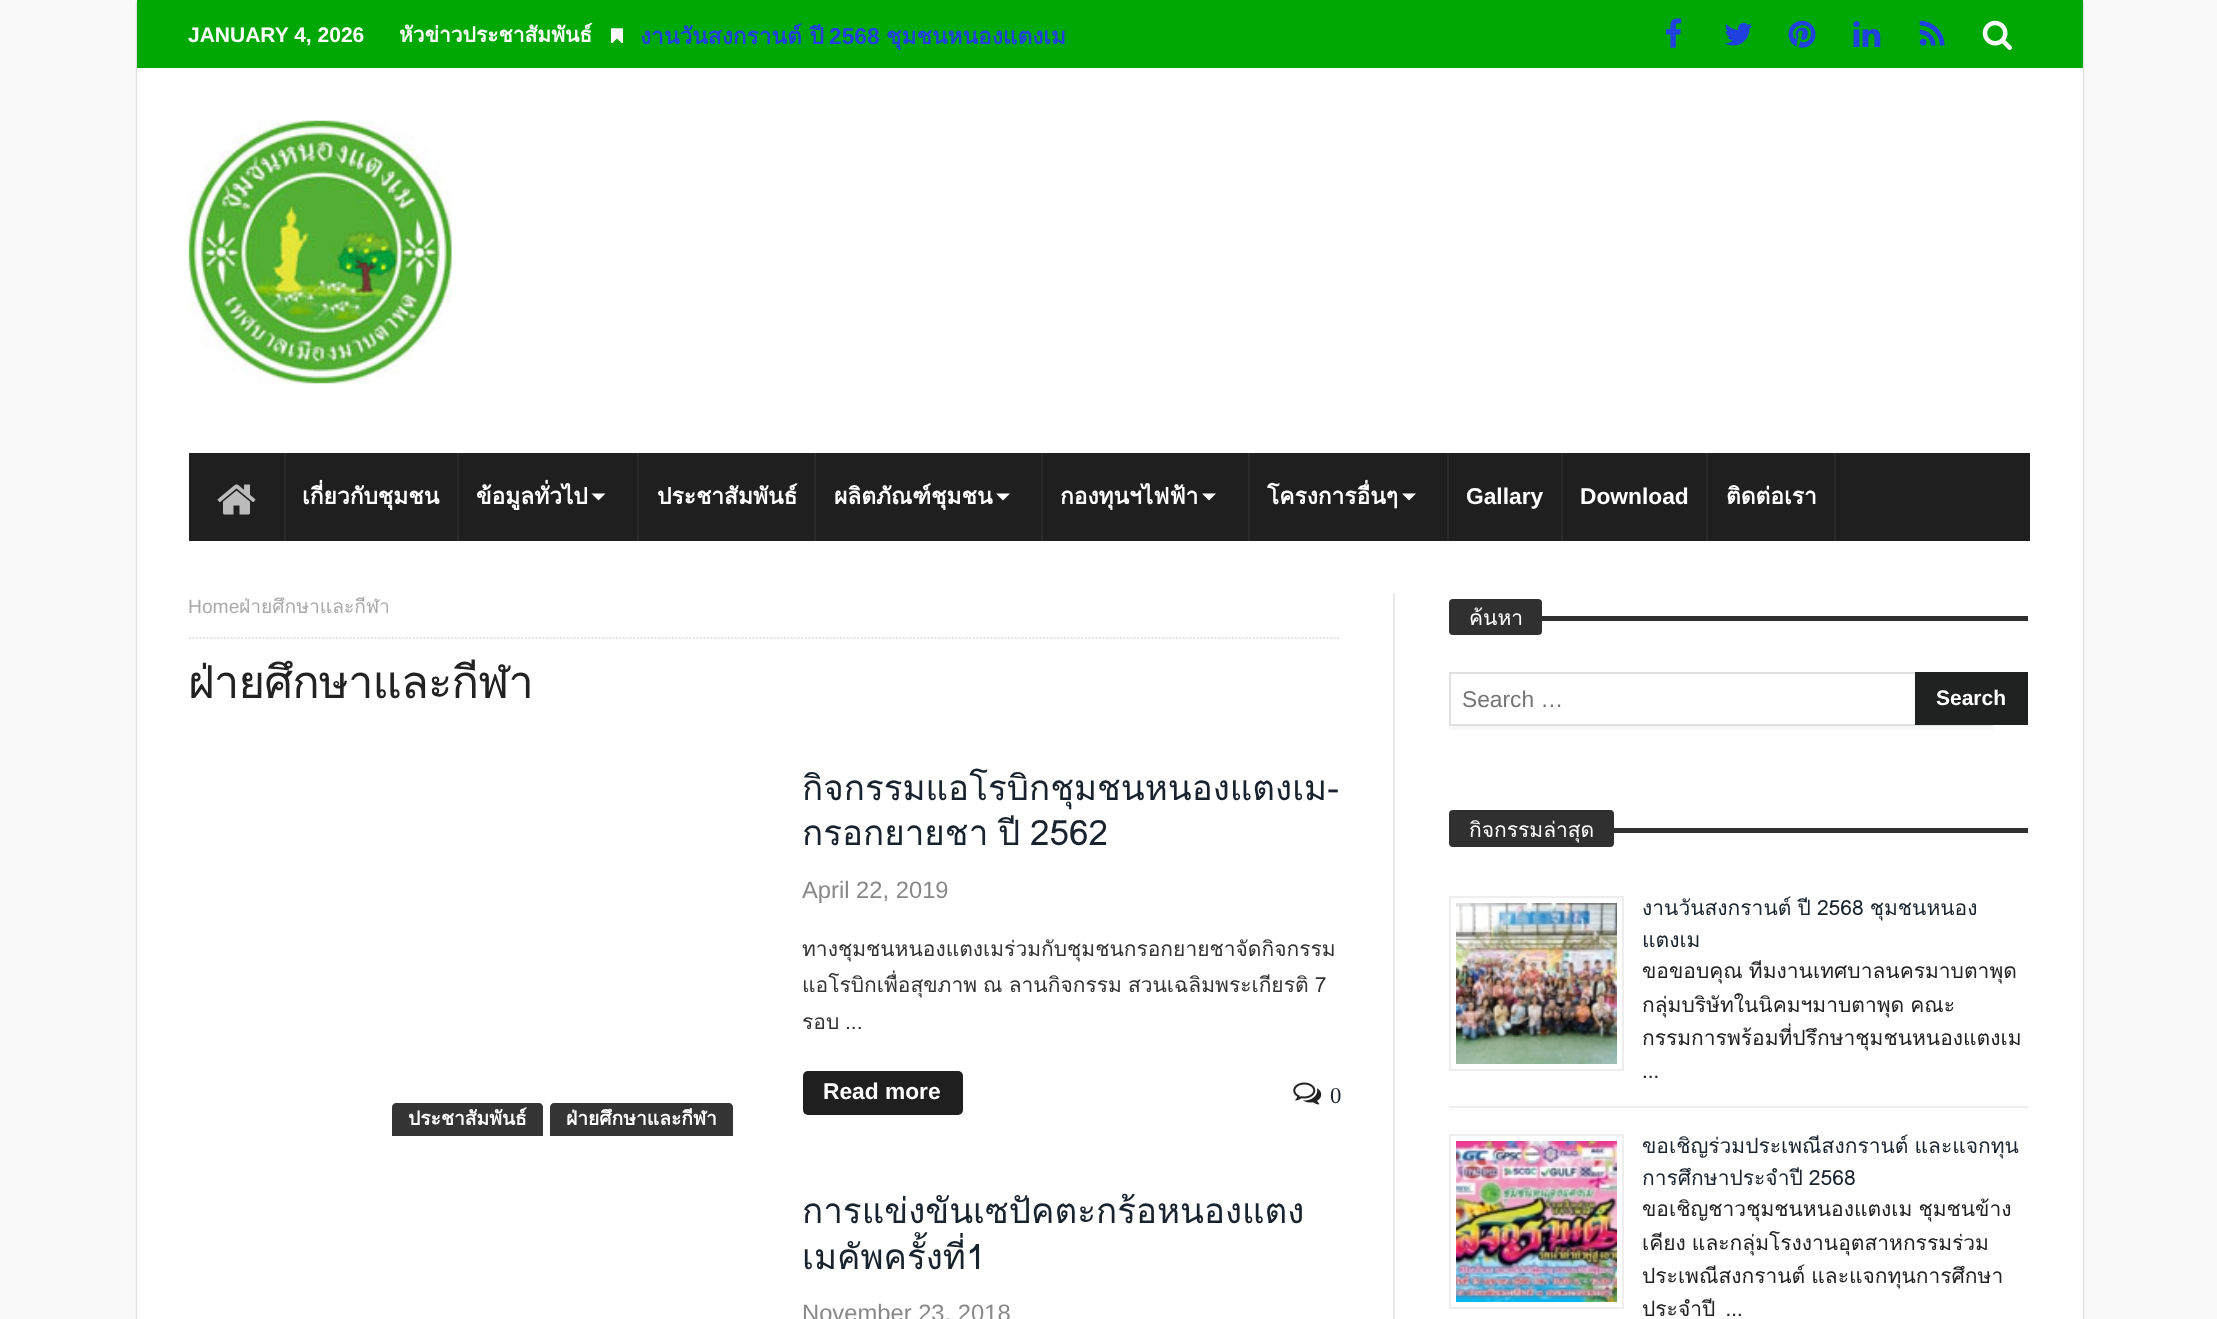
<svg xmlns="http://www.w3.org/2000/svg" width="2217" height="1319">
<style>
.a{font:bold 21px Liberation Sans;fill:#fff}
.b{font:bold 21px Loma;fill:#fff}
.c{font:bold 22.75px Loma;fill:#2040e0}
.d{font:bold 22.75px Liberation Sans;fill:#2040e0}
.e{font:bold 22.75px Loma;fill:#fff}
.f{font:bold 22.75px Liberation Sans;fill:#fff}
.g{font:19.25px Liberation Sans;fill:#aaa}
.h{font:19.25px Loma;fill:#aaa}
.i{font:45.5px Loma;letter-spacing:-0.9px;fill:#222}
.j{font:35px Loma;fill:#19232d}
.k{font:23.75px Liberation Sans;fill:#888}
.l{font:21px Loma;fill:#333}
.m{font:22.75px Liberation Serif;fill:#19232d}
.n{font:bold 19.25px Loma;fill:#fff}
.o{font:21px Loma;fill:#fff}
.p{font:22.75px Liberation Sans;fill:#757575}
.q{font:21px Loma;fill:#19232d}
.r{font:21px Loma;fill:#222}
</style>
<defs>
<clipPath id="clip1"><path d="M189 656h1152v56H189z"/></clipPath>
<clipPath id="clip2"><path d="M803 765h538v371H803z"/></clipPath>
</defs>
<rect width="100%" height="100%" fill="#f9f9f9"/>
<path fill="#0000004d" filter="blur(1px)" d="M137 2h1946v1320H137z"/>
<path fill="#fff" d="M137 68h1946v1251H137z"/>
<path fill="#00a806" d="M137 0h1946v68H137z"/>
<image href="1.png" x="611" y="28" width="12" height="15"/>
<image href="2.png" x="1665" y="18" width="17" height="30"/>
<image href="3.png" x="1724" y="23" width="29" height="23"/>
<image href="4.png" x="1788" y="20" width="28" height="28"/>
<image href="5.png" x="1853" y="21" width="28" height="26"/>
<image href="6.png" x="1919" y="20" width="26" height="26"/>
<image href="7.png" x="1982" y="20" width="30" height="30"/>
<image href="8.png" x="188" y="120" width="264" height="264"/>
<path fill="#1f1f1f" d="M189 453h1841v88H189z"/>
<path fill="#2a2a2a" d="M284 453h2v88H284z"/>
<image href="9.png" x="217" y="484" width="39" height="31"/>
<path fill="#2a2a2a" d="M457 453h2v88H457z"/>
<path fill="#2a2a2a" d="M637 453h2v88H637z"/>
<path fill="#fff" d="M591.5 493.5h14l-7 7z"/>
<path fill="#2a2a2a" d="M814 453h2v88H814z"/>
<path fill="#2a2a2a" d="M1041 453h2v88H1041z"/>
<path fill="#fff" d="M996 493.5h14l-7 7z"/>
<path fill="#2a2a2a" d="M1248 453h2v88H1248z"/>
<path fill="#fff" d="M1202 493.5h14l-7 7z"/>
<path fill="#2a2a2a" d="M1447 453h2v88H1447z"/>
<path fill="#fff" d="M1402 493.5h14l-7 7z"/>
<path fill="#2a2a2a" d="M1561 453h2v88H1561z"/>
<path fill="#2a2a2a" d="M1706 453h2v88H1706z"/>
<path fill="#2a2a2a" d="M1834 453h2v88H1834z"/>
<path fill="#e8e8e8" d="M1393 593h2v726H1393z"/>
<path fill="none" stroke="#e1e1e1" stroke-width="1.8" stroke-dasharray="1.75 1.75" d="M189 638h1151.5"/>
<rect fill="#1f1f1f" x="803" y="1071" width="160" height="44" rx="5"/>
<image href="10.png" x="1293" y="1082" width="29" height="23"/>
<path fill="#353535" d="M396 1103h143c2 0 4 2 4 4v29h-151v-29c0-2 2-4 4-4z"/>
<path fill="#353535" d="M554 1103h175c2 0 4 2 4 4v29h-183v-29c0-2 2-4 4-4z"/>
<path fill="#303030" d="M1542 616h486v5H1542z"/>
<rect fill="#303030" x="1449" y="599" width="93" height="36" rx="4"/>
<path fill="#f7f7f7" d="M1449 726h544v4H1449z"/>
<path fill="none" stroke="#e0e0e0" stroke-width="2" d="M1450 673h542v52H1450z"/>
<path fill="#202121" d="M1915 672h113v53H1915z"/>
<path fill="#303030" d="M1614 828h414v5H1614z"/>
<rect fill="#303030" x="1449" y="810" width="165" height="37" rx="4"/>
<path fill="#eee" d="M1449 1106h579v2H1449z"/>
<path fill="none" stroke="#eee" stroke-width="2" d="M1450 897h173v173H1450z"/>
<image href="11.png" x="1456" y="903" width="161" height="161"/>
<path fill="none" stroke="#eee" stroke-width="2" d="M1450 1135h173v173H1450z"/>
<image href="12.png" x="1456" y="1141" width="161" height="161"/>
<text class="a" x="188" y="42">JANUARY 4, 2026</text>
<text class="b" x="399" y="42">หัวข่าวประชาสัมพันธ์</text>
<text class="c" x="640" y="44">งานวันสงกรานต์ ปี</text>
<text class="d" x="829" y="44">2568</text>
<text class="c" x="886" y="44">ชุมชนหนองแตงเม</text>
<text class="e" x="302" y="504">เกี่ยวกับชุมชน</text>
<text class="e" x="476" y="504">ข้อมูลทั่วไป</text>
<text class="e" x="657" y="504">ประชาสัมพันธ์</text>
<text class="e" x="834" y="504">ผลิตภัณฑ์ชุมชน</text>
<text class="e" x="1060" y="504">กองทุนฯไฟฟ้า</text>
<text class="e" x="1267" y="504">โครงการอื่นๆ</text>
<text class="f" x="1466" y="504">Gallary</text>
<text class="f" x="1580" y="504">Download</text>
<text class="e" x="1726" y="504">ติดต่อเรา</text>
<text class="g" x="188" y="613">Home</text>
<text class="h" x="239" y="613">ฝ่ายศึกษาและกีฬา</text>
<g clip-path="url(#clip1)">
<text class="i" x="188" y="698">ฝ่ายศึกษาและกีฬา</text>
</g>
<g clip-path="url(#clip2)">
<text class="j" x="802" y="800">กิจกรรมแอโรบิกชุมชนหนองแตงเม-</text>
</g>
<text class="j" x="802" y="845" word-spacing="-2">กรอกยายชา ปี 2562</text>
<text class="k" x="802" y="898">April 22, 2019</text>
<text class="l" x="802" y="956">ทางชุมชนหนองแตงเมร่วมกับชุมชนกรอกยายชาจัดกิจกรรม</text>
<text class="l" x="802" y="992" word-spacing="-1">แอโรบิกเพื่อสุขภาพ ณ ลานกิจกรรม สวนเฉลิมพระเกียรติ 7</text>
<text class="l" x="802" y="1029">รอบ</text>
<text class="l" x="845" y="1029">...</text>
<text class="f" x="823" y="1099">Read more</text>
<text class="m" x="1330" y="1103">0</text>
<text class="n" x="408" y="1125">ประชาสัมพันธ์</text>
<text class="n" x="566" y="1125">ฝ่ายศึกษาและกีฬา</text>
<text class="j" x="802" y="1223">การแข่งขันเซปัคตะกร้อหนองแตง</text>
<text class="j" x="802" y="1269">เมคัพครั้งที่1</text>
<text class="k" x="802" y="1321">November 23, 2018</text>
<text class="o" x="1469" y="625">ค้นหา</text>
<text class="p" x="1462" y="707">Search …</text>
<text class="a" x="1936" y="705">Search</text>
<text class="o" x="1469" y="837">กิจกรรมล่าสุด</text>
<text class="q" x="1642" y="915" word-spacing="-1">งานวันสงกรานต์ ปี 2568 ชุมชนหนอง</text>
<text class="q" x="1642" y="947">แตงเม</text>
<text class="r" x="1642" y="978" word-spacing="-1">ขอขอบคุณ ทีมงานเทศบาลนครมาบตาพุด</text>
<text class="r" x="1642" y="1012" word-spacing="-1">กลุ่มบริษัทในนิคมฯมาบตาพุด คณะ</text>
<text class="r" x="1642" y="1045">กรรมการพร้อมที่ปรึกษาชุมชนหนองแตงเม</text>
<text class="r" x="1642" y="1078">…</text>
<text class="q" x="1642" y="1153" word-spacing="-1">ขอเชิญร่วมประเพณีสงกรานต์ และแจกทุน</text>
<text class="q" x="1642" y="1185" word-spacing="-1">การศึกษาประจำปี 2568</text>
<text class="r" x="1642" y="1216" word-spacing="-1">ขอเชิญชาวชุมชนหนองแตงเม ชุมชนข้าง</text>
<text class="r" x="1642" y="1250" word-spacing="-1">เคียง และกลุ่มโรงงานอุตสาหกรรมร่วม</text>
<text class="r" x="1642" y="1283" word-spacing="-1">ประเพณีสงกรานต์ และแจกทุนการศึกษา</text>
<text class="r" x="1642" y="1316" word-spacing="3">ประจำปี …</text>
</svg>
